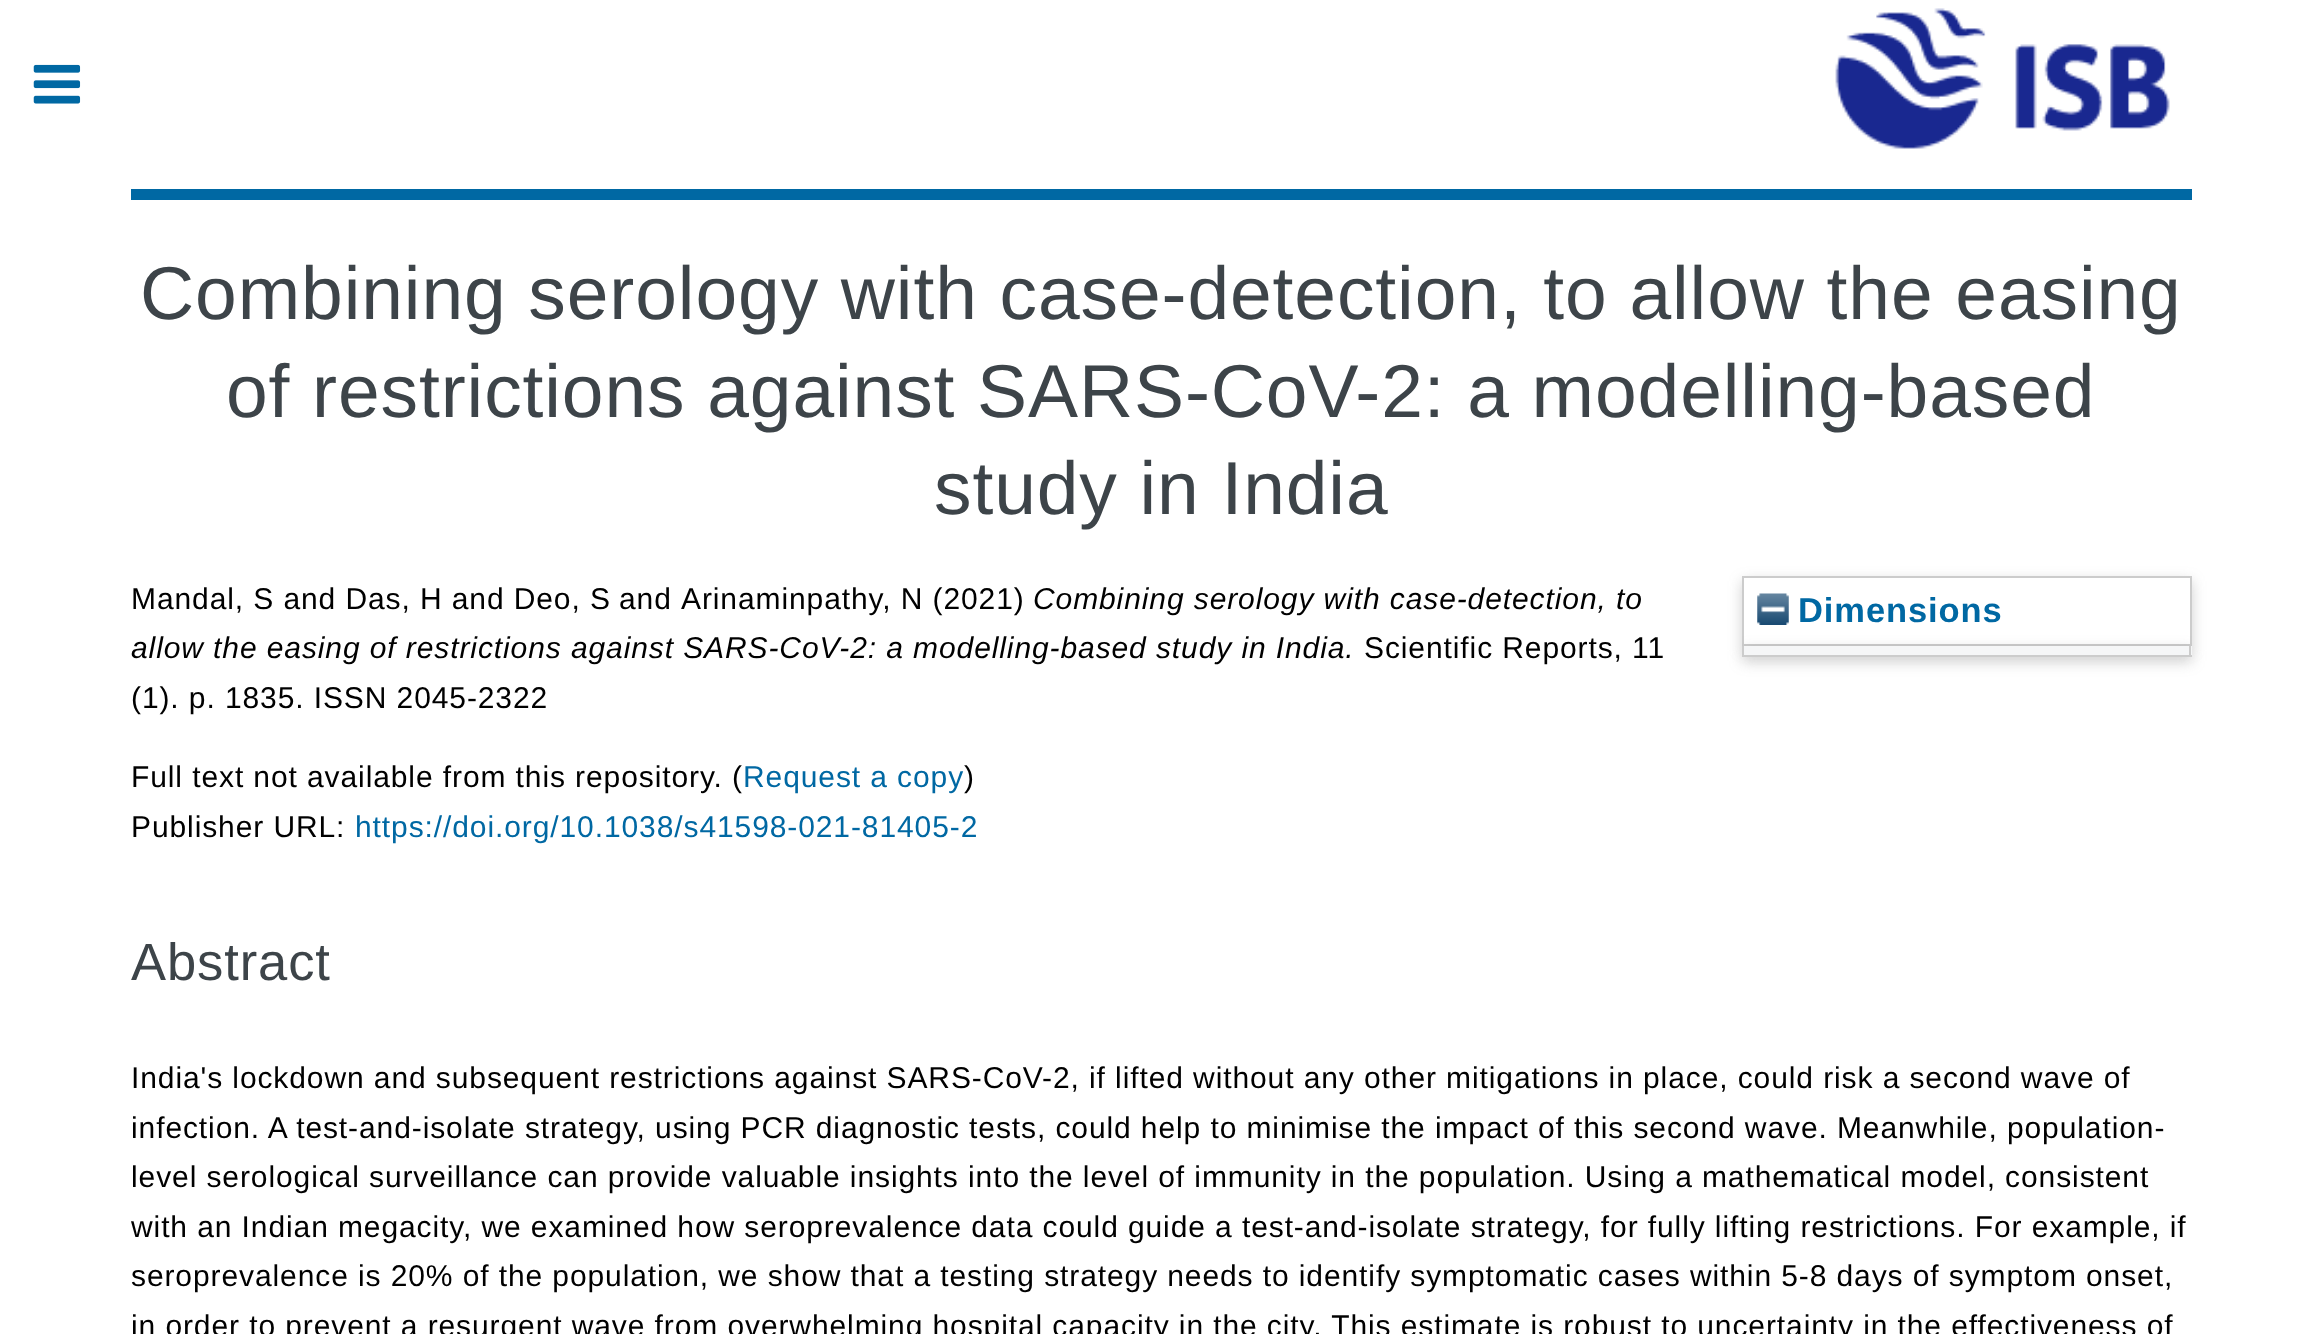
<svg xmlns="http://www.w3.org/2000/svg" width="2321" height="1334">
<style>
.a{font:75px Liberation Sans;letter-spacing:0.9px;fill:#3d4449}
.b{font:30px Liberation Sans;letter-spacing:0.9px;fill:#000}
.c{font:italic 30px Liberation Sans;letter-spacing:0.9px;fill:#000}
.d{font:30px Liberation Sans;letter-spacing:0.9px;fill:#0068a3}
.e{font:52.5px Liberation Sans;letter-spacing:0.9px;fill:#3d4449}
.f{font:bold 34.5px Liberation Sans;letter-spacing:0.9px;fill:#0068a3}
</style>
<rect width="100%" height="100%" fill="#fff"/>
<image href="1.png" x="33" y="64" width="48" height="40"/>
<path fill="#0068a3" d="M131 189h2061v11H131z"/>
<image href="2.png" x="1835" y="8" width="335" height="141"/>
<path fill="#6464644d" filter="blur(7px)" d="M1742 581h450v69H1742z"/>
<path fill="#fff" stroke="#ccc" stroke-width="2" d="M1743 577h448v68H1743z"/>
<image href="3.png" x="1757" y="593" width="32" height="32"/>
<path fill="#6464644d" filter="blur(7px)" d="M1742 650h450v12H1742z"/>
<path fill="#f5f6f7" d="M1744 646h448v9H1744z"/>
<path fill="#ccc" d="M2189 646h2v11H2189z"/>
<path fill="#ccc" d="M1742 655h450v2H1742z"/>
<path fill="#ccc" d="M1742 646h2v11H1742z"/>
<text class="a" x="140" y="319">Combining serology with case-detection, to allow the easing</text>
<text class="a" x="226" y="417">of restrictions against SARS-CoV-2: a modelling-based</text>
<text class="a" x="934" y="514">study in India</text>
<text class="b" x="131" y="609">Mandal, S and Das, H and Deo, S</text>
<text class="b" x="619" y="609">and</text>
<text class="b" x="681" y="609">Arinaminpathy, N (2021)</text>
<text class="c" x="1033" y="609">Combining serology with case-detection, to</text>
<text class="c" x="131" y="658">allow the easing of restrictions against SARS-CoV-2: a modelling-based study in India.</text>
<text class="b" x="1364" y="658">Scientific Reports, 11</text>
<text class="b" x="131" y="708">(1). p. 1835. ISSN 2045-2322</text>
<text class="b" x="131" y="787">Full text not available from this repository. (</text>
<text class="d" x="743" y="787">Request a copy</text>
<text class="b" x="964" y="787">)</text>
<text class="b" x="131" y="837">Publisher URL:</text>
<text class="d" x="355" y="837">https://doi.org/10.1038/s41598-021-81405-2</text>
<text class="e" x="131" y="980">Abstract</text>
<text class="b" x="131" y="1088">India's lockdown and subsequent restrictions against SARS-CoV-2, if lifted without any other mitigations in place, could risk a second wave of</text>
<text class="b" x="131" y="1138">infection. A test-and-isolate strategy, using PCR diagnostic tests, could help to minimise the impact of this second wave. Meanwhile, population-</text>
<text class="b" x="131" y="1187">level serological surveillance can provide valuable insights into the level of immunity in the population. Using a mathematical model, consistent</text>
<text class="b" x="131" y="1237">with an Indian megacity, we examined how seroprevalence data could guide a test-and-isolate strategy, for fully lifting restrictions. For example, if</text>
<text class="b" x="131" y="1286">seroprevalence is 20% of the population, we show that a testing strategy needs to identify symptomatic cases within 5-8 days of symptom onset,</text>
<text class="b" x="131" y="1336">in order to prevent a resurgent wave from overwhelming hospital capacity in the city. This estimate is robust to uncertainty in the effectiveness of</text>
<text class="f" x="1798" y="622">Dimensions</text>
</svg>
